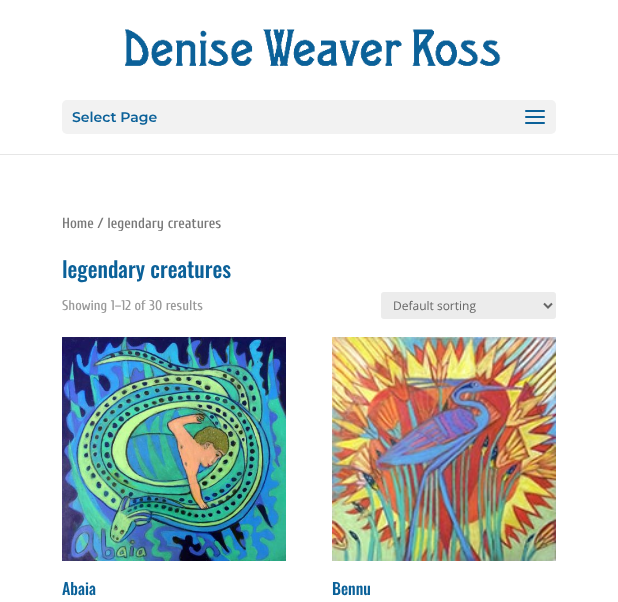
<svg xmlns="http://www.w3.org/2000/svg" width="618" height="602">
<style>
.a{font:600 14px Montserrat;fill:#0b6199}
.b{font:500 14.75px Cuprum;fill:#767676}
.c{font:500 22px Oswald;fill:#0b6199}
.d{font:500 14px Cuprum;fill:#999}
.e{font:12px Open Sans;fill:#666}
.f{font:500 16px Oswald;fill:#0b6199}
</style>
<rect width="100%" height="100%" fill="#fff"/>
<path fill="#e6e6e6" d="M0 154h618v1H0z"/>
<image href="1.png" x="125" y="29" width="376" height="37"/>
<rect fill="#f2f2f2" x="62" y="100" width="494" height="34" rx="5"/>
<image href="2.png" x="525" y="110" width="20" height="14"/>
<rect fill="#ececec" x="381" y="292" width="175" height="27" rx="3"/>
<path fill="none" stroke="#666" stroke-width="2" d="M544 303.5l4 4l4-4"/>
<image href="3.png" x="62" y="337" width="224" height="224"/>
<image href="4.png" x="332" y="337" width="224" height="224"/>
<text class="a" x="72" y="122">Select Page</text>
<text class="b" x="62" y="228">Home / legendary creatures</text>
<text class="c" x="62" y="278">legendary creatures</text>
<text class="d" x="62" y="310">Showing 1–12 of 30 results</text>
<text class="e" x="393" y="310">Default sorting</text>
<text class="f" x="62" y="595">Abaia</text>
<text class="f" x="332" y="595">Bennu</text>
</svg>
